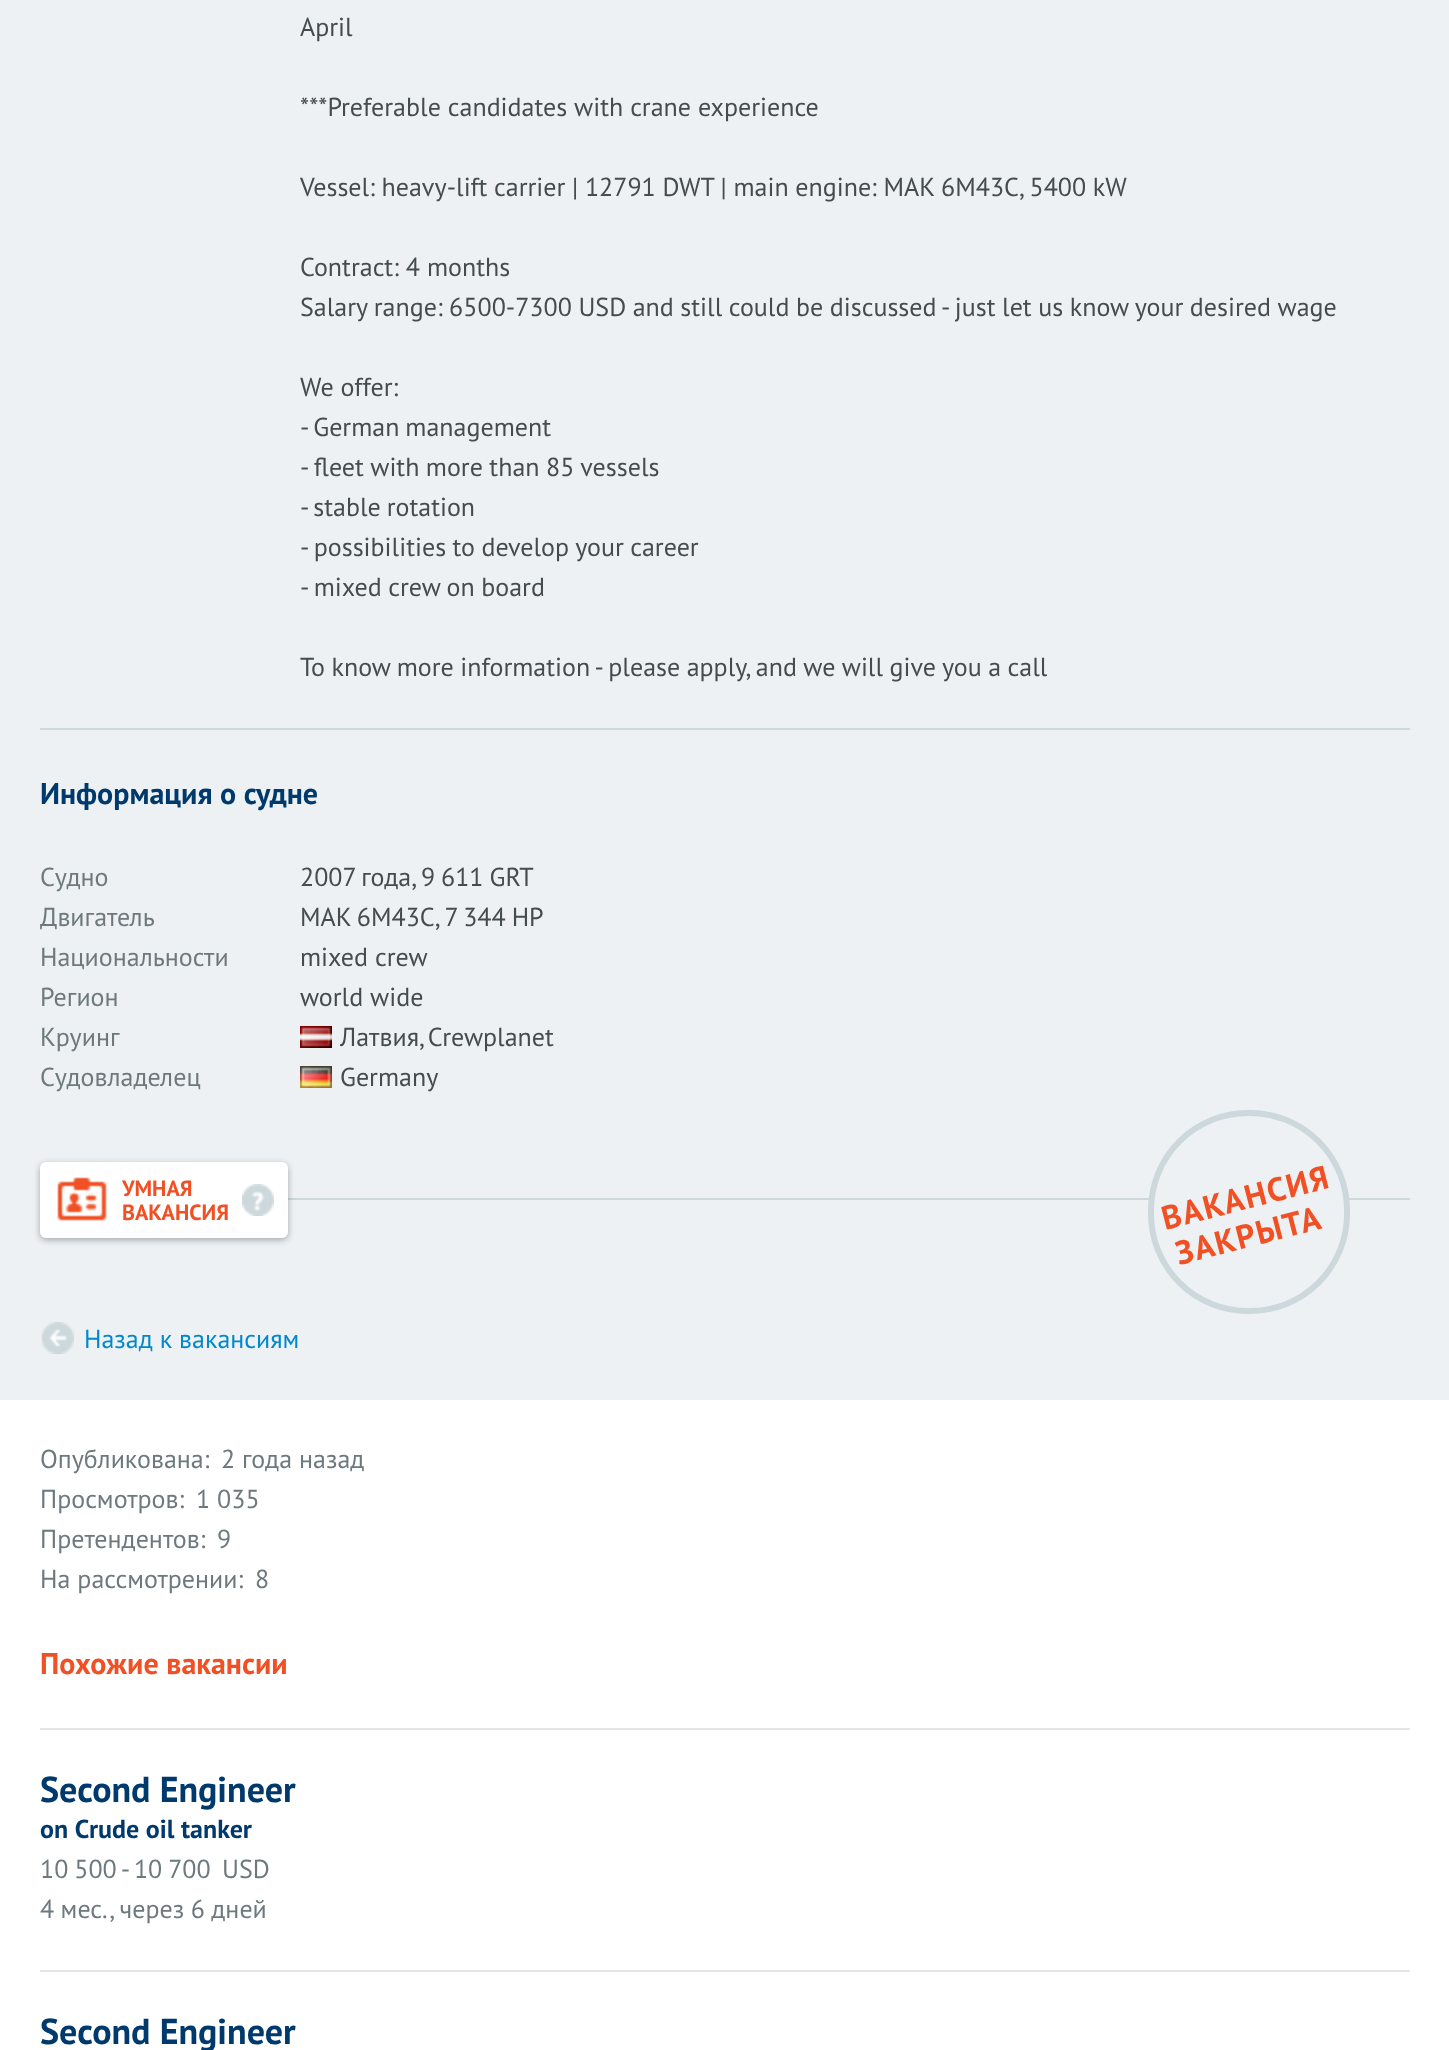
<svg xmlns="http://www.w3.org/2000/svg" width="1449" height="2050">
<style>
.a{font:26px PT Sans;fill:#444c4f}
.b{font:bold 30px PT Sans;fill:#003a6c}
.c{font:26px PT Sans;fill:#6d797d}
.d{font:bold 22px PT Sans;fill:#f05023}
.e{font:bold 33px PT Sans;letter-spacing:1.5px;fill:#f05023}
.f{font:26px PT Sans;fill:#08c}
.g{font:bold 30px PT Sans;fill:#f05023}
.h{font:bold 36px PT Sans;fill:#003a6c}
.i{font:bold 26px PT Sans;fill:#003a6c}
</style>
<rect width="100%" height="100%" fill="#edf1f3"/>
<path fill="#ccd8dc" d="M40 728h1370v2H40z"/>
<image href="1.png" x="300" y="1026" width="32" height="22"/>
<image href="2.png" x="300" y="1066" width="32" height="22"/>
<path fill="#ccd8dc" d="M288 1198h1122v2H288z"/>
<rect fill="#0000004d" filter="blur(3px)" x="40" y="1164" width="248" height="76" rx="6"/>
<rect fill="#fff" x="40" y="1162" width="248" height="76" rx="6"/>
<image href="3.png" x="57" y="1177" width="50" height="44"/>
<image href="4.png" x="242" y="1184" width="32" height="32"/>
<rect fill="#edf1f3" stroke="#ccd8dc" stroke-width="6" x="1151" y="1113" width="196" height="198" rx="97"/>
<image href="5.png" x="41" y="1322" width="33" height="32"/>
<path fill="#fff" d="M0 1400h1449v650H0z"/>
<path fill="#e5e5e5" d="M40 1728h1370v2H40z"/>
<path fill="#e5e5e5" d="M40 1970h1370v2H40z"/>
<text class="a" x="300" y="36">April</text>
<text class="a" x="300" y="116">***Preferable candidates with crane experience</text>
<text class="a" x="300" y="196" word-spacing="-0.25">Vessel: heavy-lift carrier | 12791 DWT | main engine: MAK 6M43C, 5400 kW</text>
<text class="a" x="300" y="276">Contract: 4 months</text>
<text class="a" x="300" y="316" word-spacing="-0.4">Salary range: 6500-7300 USD and still could be discussed - just let us know your desired wage</text>
<text class="a" x="300" y="396">We offer:</text>
<text class="a" x="300" y="436" word-spacing="-1">- German management</text>
<text class="a" x="300" y="476" word-spacing="-0.5">- fleet with more than 85 vessels</text>
<text class="a" x="300" y="516" word-spacing="-1">- stable rotation</text>
<text class="a" x="300" y="556" word-spacing="-0.5">- possibilities to develop your career</text>
<text class="a" x="300" y="596" word-spacing="-0.5">- mixed crew on board</text>
<text class="a" x="300" y="676" word-spacing="-0.5">To know more information - please apply, and we will give you a call</text>
<text class="b" x="40" y="804">Информация о судне</text>
<text class="c" x="40" y="886">Судно</text>
<text class="a" x="300" y="886" word-spacing="-1">2007 года, 9 611 GRT</text>
<text class="c" x="40" y="926">Двигатель</text>
<text class="a" x="300" y="926" word-spacing="-1">MAK 6M43C, 7 344 HP</text>
<text class="c" x="40" y="966">Национальности</text>
<text class="a" x="300" y="966">mixed crew</text>
<text class="c" x="40" y="1006">Регион</text>
<text class="a" x="300" y="1006">world wide</text>
<text class="c" x="40" y="1046">Круинг</text>
<text class="a" x="340" y="1046" word-spacing="-2">Латвия, Crewplanet</text>
<text class="c" x="40" y="1086">Судовладелец</text>
<text class="a" x="340" y="1086">Germany</text>
<text class="d" x="122" y="1196">УМНАЯ</text>
<text class="d" x="122" y="1220">ВАКАНСИЯ</text>
<text class="e" x="1165" y="1230" transform="rotate(-14.4 1165 1230)">ВАКАНСИЯ</text>
<text class="e" x="1179" y="1265" transform="rotate(-14.4 1179 1265)">ЗАКРЫТА</text>
<text class="f" x="84" y="1348">Назад к вакансиям</text>
<text class="c" x="40" y="1468">Опубликована:</text>
<text class="c" x="221" y="1468">2 года назад</text>
<text class="c" x="40" y="1508">Просмотров:</text>
<text class="c" x="196" y="1508">1 035</text>
<text class="c" x="40" y="1548">Претендентов:</text>
<text class="c" x="217" y="1548">9</text>
<text class="c" x="40" y="1588">На рассмотрении:</text>
<text class="c" x="255" y="1588">8</text>
<text class="g" x="40" y="1674">Похожие вакансии</text>
<text class="h" x="40" y="1802">Second Engineer</text>
<text class="i" x="40" y="1838">on Crude oil tanker</text>
<text class="c" x="40" y="1878" word-spacing="-1">10 500 - 10 700</text>
<text class="c" x="222" y="1878">USD</text>
<text class="c" x="40" y="1918" word-spacing="-0.5">4 мес., через 6 дней</text>
<text class="h" x="40" y="2044">Second Engineer</text>
</svg>
